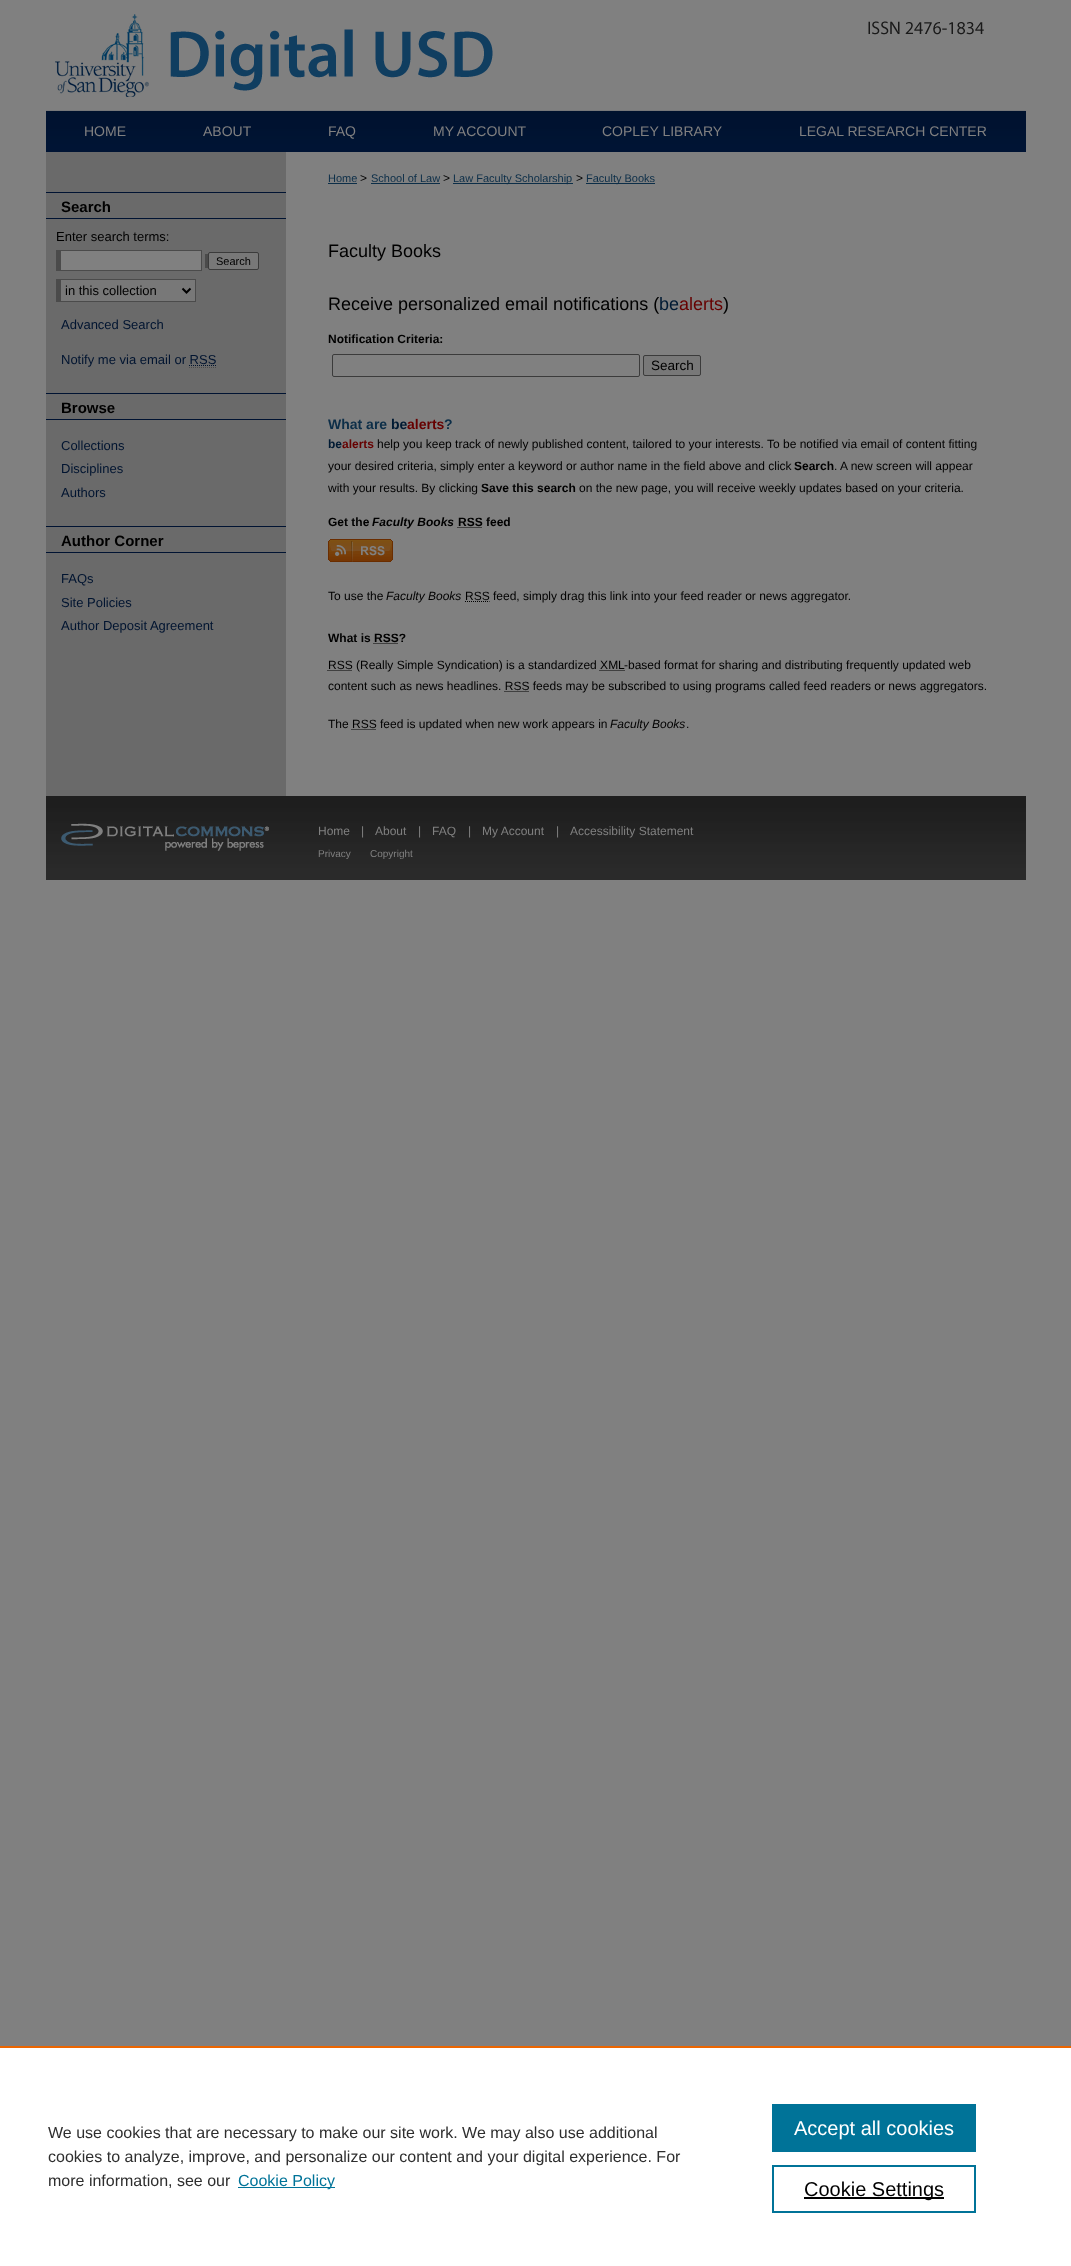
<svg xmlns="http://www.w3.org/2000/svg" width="1071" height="2266">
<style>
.a{font:14px Liberation Sans;fill:#808080}
.b{font:bold 15px Liberation Sans;fill:#000}
.c{font:13px Liberation Sans;fill:#000}
.d{font:11px Liberation Sans;fill:#000}
.e{font:13px Liberation Sans;fill:#011430}
.f{font:11px Liberation Sans;fill:#0c2e48}
.g{font:12px Liberation Sans;fill:#000}
.h{font:18px Liberation Sans;fill:#000}
.i{font:18px Liberation Sans;fill:#001a33}
.j{font:18px Liberation Sans;fill:#600}
.k{font:bold 12px Liberation Sans;fill:#000}
.l{font:13.5px Liberation Sans;fill:#000}
.m{font:bold 14px Liberation Sans;fill:#0c2e48}
.n{font:bold 14px Liberation Sans;fill:#001a33}
.o{font:bold 14px Liberation Sans;fill:#600}
.p{font:bold 12px Liberation Sans;fill:#001a33}
.q{font:bold 12px Liberation Sans;fill:#600}
.r{font:italic bold 12px Liberation Sans;fill:#000}
.s{font:italic 12px Liberation Sans;fill:#000}
.t{font:12px Liberation Sans;fill:#808080}
.u{font:10px Liberation Sans;fill:#808080}
.v{font:16px Liberation Sans;fill:#2e2e2e}
.w{font:16px Liberation Sans;fill:#007398}
.x{font:20px Liberation Sans;fill:#fff}
.y{font:20px Liberation Sans;fill:#000}
</style>
<rect width="100%" height="100%" fill="#808080"/>
<image href="2.png" x="46" y="21" width="980" height="90"/>
<image href="1.png" x="55" y="14" width="94" height="83"/>
<image href="3.png" x="46" y="111" width="980" height="41"/>
<path fill="#6a6a6a" d="M46 152h240v644H46z"/>
<path fill="#001332" d="M46 192h240v1H46z"/>
<path fill="#001332" d="M46 218h240v1H46z"/>
<path fill="#4b4b4b" d="M56 250h146v21H56z"/>
<path fill="#4b4b4b" d="M205 254h3v14H205z"/>
<path fill="#808080" d="M61 251h140v19H61z"/>
<rect fill="#787878" stroke="#3b3b3b" x="208.5" y="252.5" width="50" height="17" rx="1.5"/>
<path fill="#787878" d="M61 280h134v21H61z"/>
<path fill="#4b4b4b" d="M56 279h140v1H56z"/>
<path fill="#4b4b4b" d="M195 279h1v23H195z"/>
<path fill="#4b4b4b" d="M56 301h140v1H56z"/>
<path fill="#4b4b4b" d="M56 279h5v23H56z"/>
<path fill="none" stroke="#000" stroke-width="2" d="M182.5 288.5l4 4l4-4"/>
<path fill="none" stroke="#011430" stroke-dasharray="1 1" d="M189 365.5h27"/>
<path fill="none" stroke="#4d4d4d" stroke-dasharray="1 1" d="M189 367.5h27"/>
<path fill="#001332" d="M46 393h240v1H46z"/>
<path fill="#001332" d="M46 419h240v1H46z"/>
<path fill="#001332" d="M46 526h240v1H46z"/>
<path fill="#001332" d="M46 552h240v1H46z"/>
<path fill="#0c2e48" d="M328 183h29v1H328z"/>
<path fill="#0c2e48" d="M371 183h69v1H371z"/>
<path fill="#0c2e48" d="M453 183h120v1H453z"/>
<path fill="#0c2e48" d="M586 183h69v1H586z"/>
<rect fill="none" stroke="#3b3b3b" x="332.5" y="354.5" width="307" height="22" rx="1.5"/>
<rect fill="#787878" stroke="#3b3b3b" x="643.5" y="355.5" width="57" height="20" rx="1.5"/>
<path fill="none" stroke="#000" stroke-dasharray="1 1" d="M457.5 527.5h24.5"/>
<image href="4.png" x="328" y="539" width="65" height="23"/>
<path fill="none" stroke="#000" stroke-dasharray="1 1" d="M465 601.5h24.5"/>
<path fill="none" stroke="#000" stroke-dasharray="1 1" d="M373.5 643.5h24.5"/>
<path fill="none" stroke="#000" stroke-dasharray="1 1" d="M327.5 670.5h24.5"/>
<path fill="none" stroke="#000" stroke-dasharray="1 1" d="M599.5 670.5h25"/>
<path fill="none" stroke="#000" stroke-dasharray="1 1" d="M504.5 691.5h24.5"/>
<path fill="none" stroke="#000" stroke-dasharray="1 1" d="M351.5 729.5h24.5"/>
<image href="5.png" x="46" y="796" width="980" height="84"/>
<image href="6.png" x="61" y="823" width="208" height="28"/>
<path fill="#fff" d="M0 2048h1071v218H0z"/>
<path fill="#eb6500" d="M0 2046h1071v2H0z"/>
<path fill="#007398" d="M238 2187h97v1H238z"/>
<path fill="#007398" d="M772 2104h204v48H772z"/>
<path fill="none" stroke="#007398" stroke-width="2" d="M773 2166h202v46H773z"/>
<path fill="#000" d="M804 2197h140v2H804z"/>
<text class="a" x="84" y="136">HOME</text>
<text class="a" x="203" y="136">ABOUT</text>
<text class="a" x="328" y="136">FAQ</text>
<text class="a" x="433" y="136">MY ACCOUNT</text>
<text class="a" x="602" y="136">COPLEY LIBRARY</text>
<text class="a" x="799" y="136">LEGAL RESEARCH CENTER</text>
<text class="b" x="61" y="212">Search</text>
<text class="c" x="56" y="241">Enter search terms:</text>
<text class="d" x="216" y="265">Search</text>
<text class="c" x="65" y="295">in this collection</text>
<text class="e" x="61" y="329">Advanced Search</text>
<text class="e" x="61" y="364">Notify me via email or RSS</text>
<text class="b" x="61" y="413">Browse</text>
<text class="e" x="61" y="450">Collections</text>
<text class="e" x="61" y="473">Disciplines</text>
<text class="e" x="61" y="497">Authors</text>
<text class="b" x="61" y="546">Author Corner</text>
<text class="e" x="61" y="583">FAQs</text>
<text class="e" x="61" y="607">Site Policies</text>
<text class="e" x="61" y="630">Author Deposit Agreement</text>
<text class="f" x="328" y="182">Home</text>
<text class="g" x="360" y="182">&gt;</text>
<text class="f" x="371" y="182">School of Law</text>
<text class="g" x="443" y="182">&gt;</text>
<text class="f" x="453" y="182">Law Faculty Scholarship</text>
<text class="g" x="576" y="182">&gt;</text>
<text class="f" x="586" y="182">Faculty Books</text>
<text class="h" x="328" y="257">Faculty Books</text>
<text class="h" x="328" y="310">Receive personalized email notifications (</text>
<text class="i" x="659" y="310">be</text>
<text class="j" x="679" y="310">alerts</text>
<text class="h" x="723" y="310">)</text>
<text class="k" x="328" y="343">Notification Criteria:</text>
<text class="l" x="651" y="370">Search</text>
<text class="m" x="328" y="429">What are</text>
<text class="n" x="391" y="429">be</text>
<text class="o" x="407" y="429">alerts</text>
<text class="m" x="444" y="429">?</text>
<text class="p" x="328" y="448">be</text>
<text class="q" x="342" y="448">alerts</text>
<text class="g" x="377" y="448">help you keep track of newly published content, tailored to your interests. To be notified via email of content fitting</text>
<text class="g" x="328" y="470">your desired criteria, simply enter a keyword or author name in the field above and click</text>
<text class="k" x="794" y="470">Search</text>
<text class="g" x="834" y="470">.</text>
<text class="g" x="840" y="470">A new screen will appear</text>
<text class="g" x="328" y="492">with your results. By clicking</text>
<text class="k" x="481" y="492">Save this search</text>
<text class="g" x="579" y="492">on the new page, you will receive weekly updates based on your criteria.</text>
<text class="k" x="328" y="526">Get the</text>
<text class="r" x="372" y="526">Faculty Books</text>
<text class="k" x="458" y="526">RSS feed</text>
<text class="g" x="328" y="600">To use the</text>
<text class="s" x="386" y="600">Faculty Books</text>
<text class="g" x="465" y="600">RSS feed, simply drag this link into your feed reader or news aggregator.</text>
<text class="k" x="328" y="642">What is RSS?</text>
<text class="g" x="328" y="669">RSS (Really Simple Syndication) is a standardized XML</text>
<text class="g" x="624" y="669">-based format for sharing and distributing frequently updated web</text>
<text class="g" x="328" y="690">content such as news headlines. RSS feeds may be subscribed to using programs called feed readers or news aggregators.</text>
<text class="g" x="328" y="728">The RSS feed is updated when new work appears in</text>
<text class="s" x="610" y="728">Faculty Books</text>
<text class="g" x="686" y="728">.</text>
<text class="t" x="318" y="835">Home</text>
<text class="t" x="361" y="835">|</text>
<text class="t" x="375" y="835">About</text>
<text class="t" x="418" y="835">|</text>
<text class="t" x="432" y="835">FAQ</text>
<text class="t" x="468" y="835">|</text>
<text class="t" x="482" y="835">My Account</text>
<text class="t" x="556" y="835">|</text>
<text class="t" x="570" y="835">Accessibility Statement</text>
<text class="u" x="318" y="857">Privacy</text>
<text class="u" x="370" y="857">Copyright</text>
<text class="v" x="48" y="2138">We use cookies that are necessary to make our site work. We may also use additional</text>
<text class="v" x="48" y="2162">cookies to analyze, improve, and personalize our content and your digital experience. For</text>
<text class="v" x="48" y="2186">more information, see our</text>
<text class="w" x="238" y="2186">Cookie Policy</text>
<text class="x" x="794" y="2135">Accept all cookies</text>
<text class="y" x="804" y="2196">Cookie Settings</text>
</svg>
